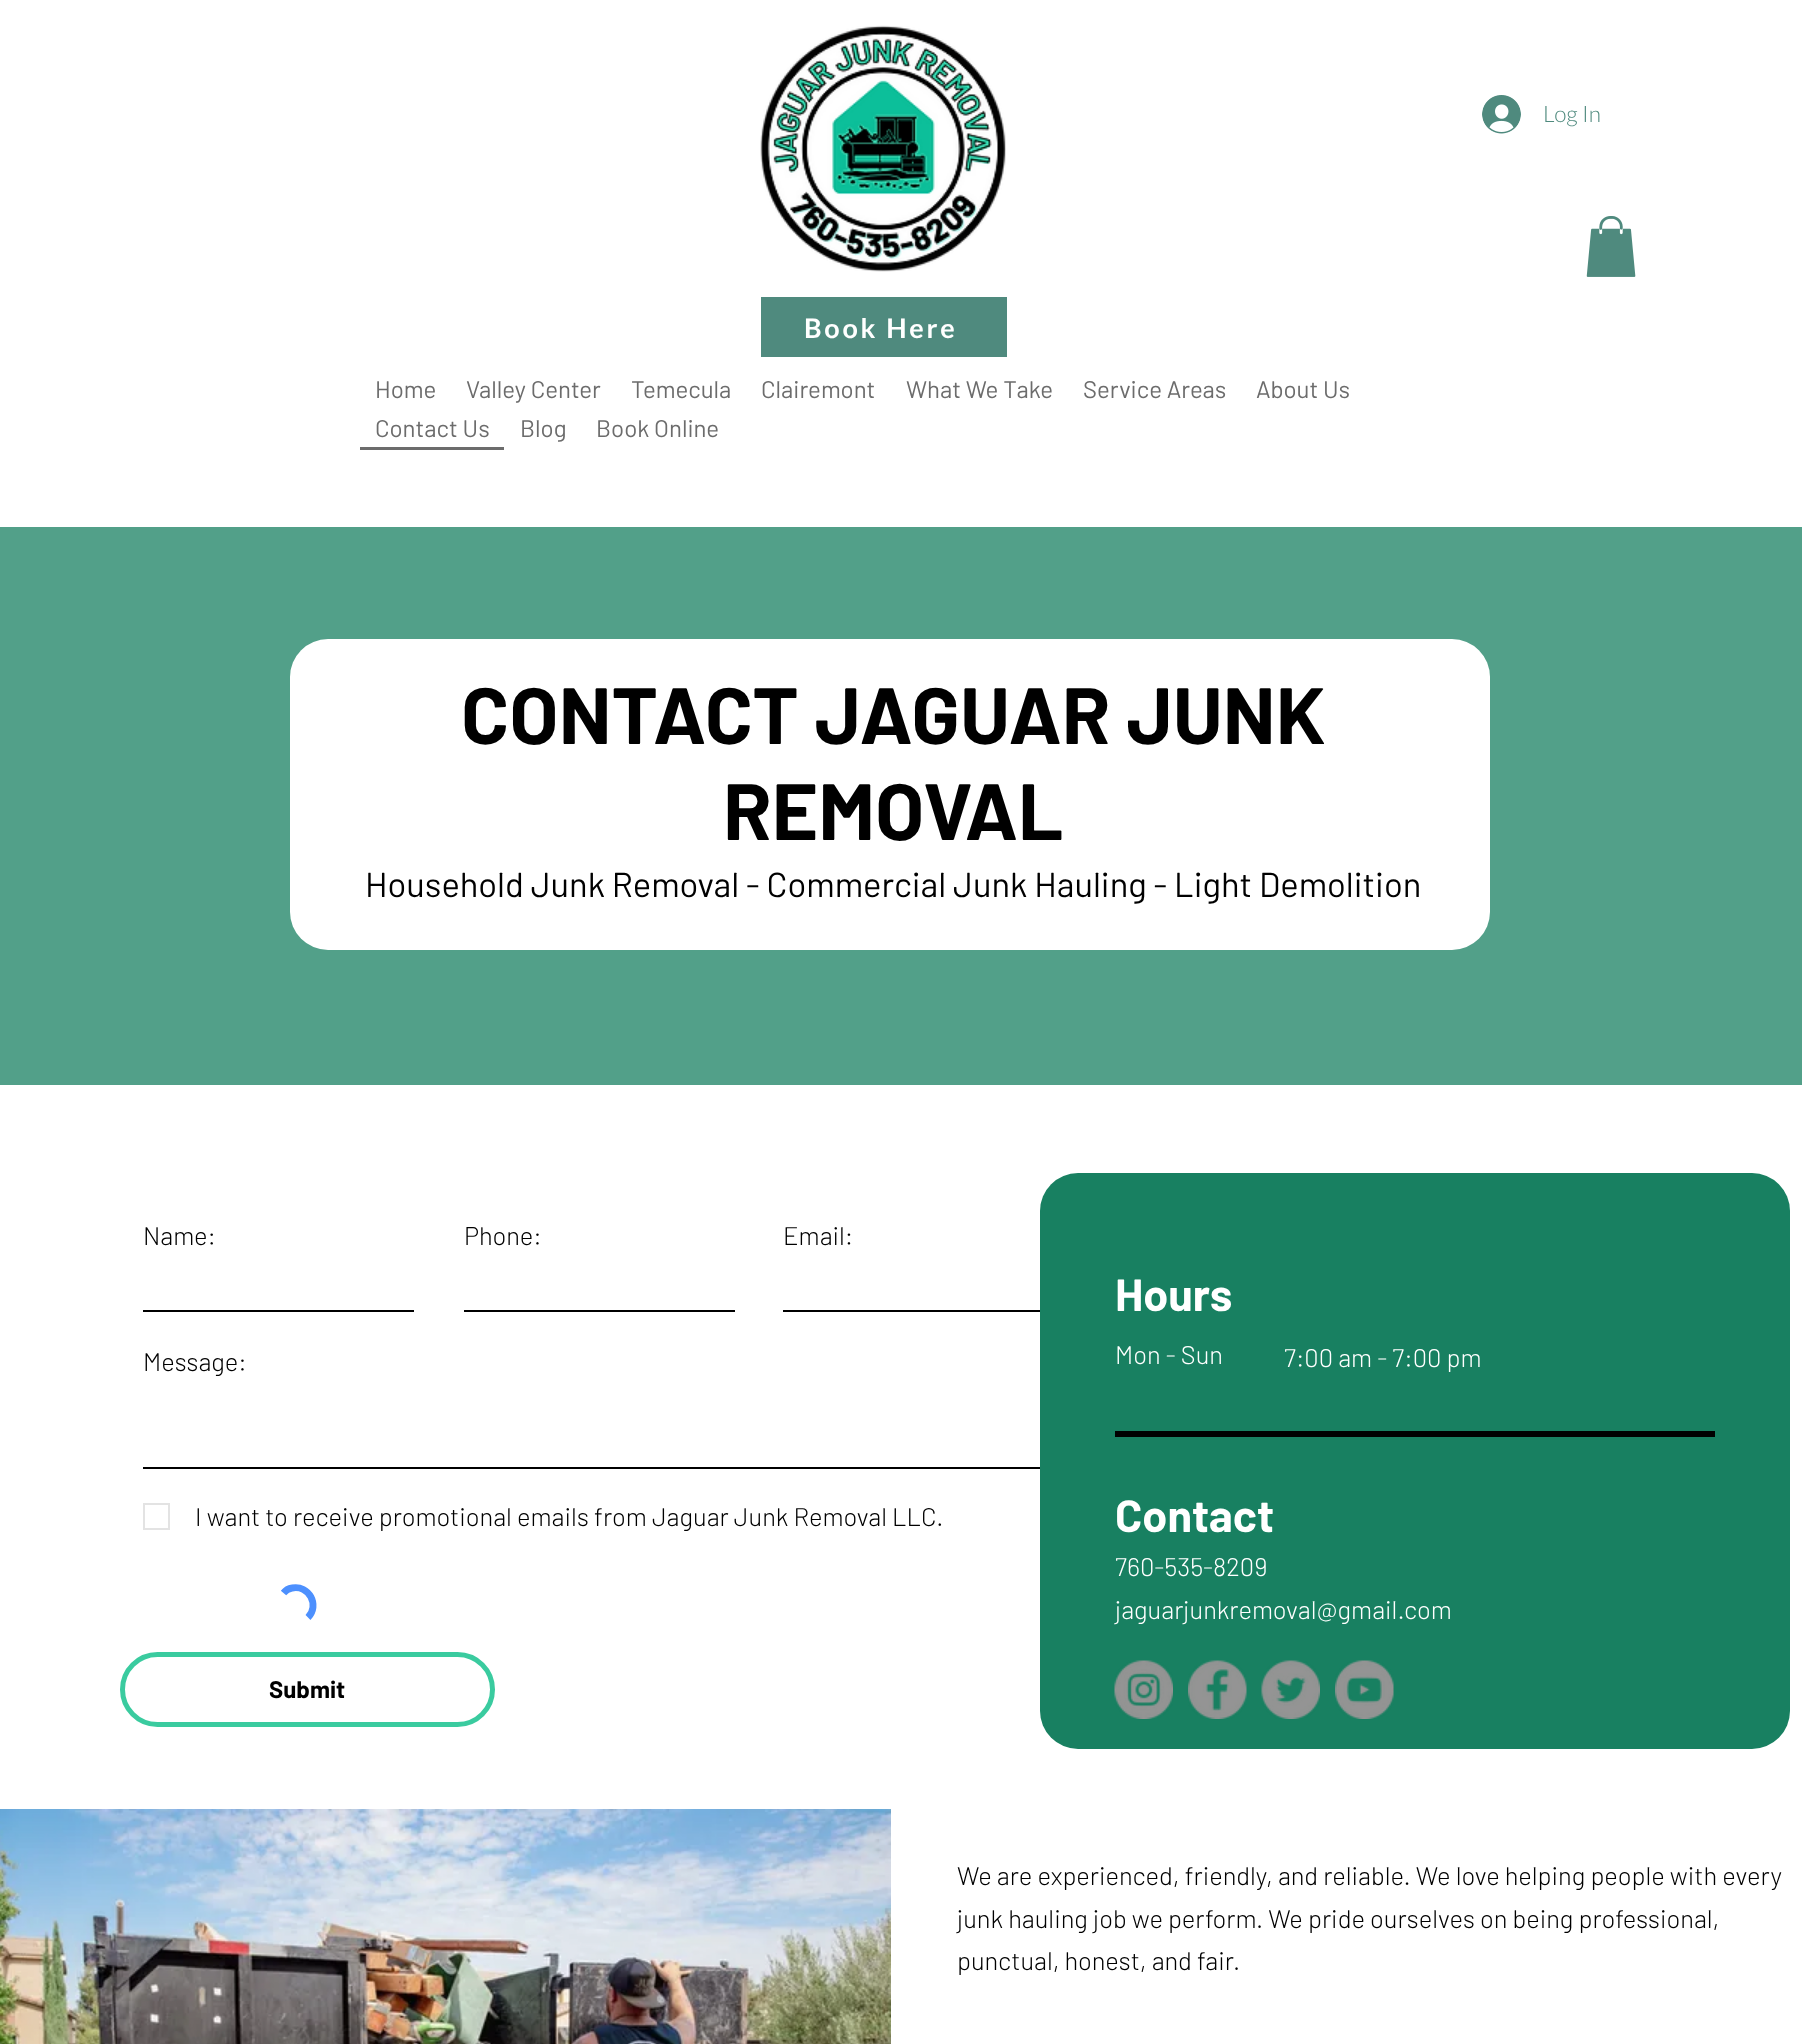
<svg xmlns="http://www.w3.org/2000/svg" width="1802" height="2044">
<style>
.a{font:300 22.5px Lato;fill:#4f8a7e}
.b{font:bold 27px Lato;letter-spacing:2.75px;fill:#fff}
.c{font:24px Barlow;fill:#6c6c6c}
.d{font:bold 79.5px Barlow;fill:#000}
.e{font:34.5px Barlow;fill:#000}
.f{font:300 25.5px Barlow;fill:#000}
.g{font:bold 24px Barlow;fill:#000}
.h{font:bold 45px Barlow;fill:#fff}
.i{font:300 25.5px Barlow;fill:#fff}
</style>
<rect width="100%" height="100%" fill="#fff"/>
<image href="1.png" x="1482" y="95" width="39" height="39"/>
<image href="2.png" x="1586" y="216" width="50" height="61"/>
<image href="3.png" x="760" y="25" width="246" height="247"/>
<path fill="#4f8a7e" d="M761 297h246v60H761z"/>
<path fill="#6c6c6c" d="M360 447h144v3H360z"/>
<path fill="#52a089" d="M0 527h1802v558H0z"/>
<rect fill="#fff" x="290" y="639" width="1200" height="311" rx="38"/>
<path fill="#000" d="M143 1310h271v2H143z"/>
<path fill="#000" d="M464 1310h271v2H464z"/>
<path fill="#000" d="M783 1310h257v2H783z"/>
<path fill="#000" d="M143 1467h897v2H143z"/>
<path fill="none" stroke="#e3e3e3" stroke-width="2" d="M144 1504h25v25H144z"/>
<path fill="none" stroke="#4d90fe" stroke-width="6.9" d="M283.5 1593c2-2.5 5.5-4.5 8.5-5c17-3.5 28 17.5 16 29.5"/>
<rect fill="none" stroke="#3acb9f" stroke-width="5" x="122.5" y="1654.5" width="370" height="70" rx="35"/>
<rect fill="#188061" x="1040" y="1173" width="750" height="576" rx="38"/>
<path fill="#000" d="M1115 1431h600v6H1115z"/>
<image href="4.png" x="1114" y="1660" width="59" height="59"/>
<image href="5.png" x="1188" y="1660" width="59" height="59"/>
<image href="6.png" x="1261" y="1660" width="59" height="59"/>
<image href="7.png" x="1335" y="1660" width="59" height="59"/>
<image href="8.png" x="0" y="1809" width="891" height="235"/>
<text class="a" x="1543" y="122">Log In</text>
<text class="b" x="804" y="338">Book Here</text>
<text class="c" x="375" y="398">Home</text>
<text class="c" x="466" y="398">Valley Center</text>
<text class="c" x="631" y="398">Temecula</text>
<text class="c" x="761" y="398">Clairemont</text>
<text class="c" x="906" y="398">What We Take</text>
<text class="c" x="1083" y="398">Service Areas</text>
<text class="c" x="1256" y="398">About Us</text>
<text class="c" x="375" y="437">Contact Us</text>
<text class="c" x="520" y="437">Blog</text>
<text class="c" x="596" y="437">Book Online</text>
<text class="d" x="461" y="744">CONTACT JAGUAR JUNK</text>
<text class="d" x="723" y="840">REMOVAL</text>
<text class="e" x="365" y="897">Household Junk Removal - Commercial Junk Hauling - Light Demolition</text>
<text class="f" x="143" y="1245">Name:</text>
<text class="f" x="464" y="1245">Phone:</text>
<text class="f" x="783" y="1245">Email:</text>
<text class="f" x="143" y="1371">Message:</text>
<text class="f" x="195" y="1526">I want to receive promotional emails from Jaguar Junk Removal LLC.</text>
<text class="g" x="269" y="1698">Submit</text>
<text class="h" x="1115" y="1311">Hours</text>
<text class="i" x="1115" y="1364">Mon - Sun</text>
<text class="i" x="1284" y="1367">7:00 am - 7:00 pm</text>
<text class="h" x="1115" y="1532">Contact</text>
<text class="i" x="1115" y="1576">760-535-8209</text>
<text class="i" x="1115" y="1619">jaguarjunkremoval@gmail.com</text>
<text class="f" x="957" y="1885">We are experienced, friendly, and reliable. We love helping people with every</text>
<text class="f" x="957" y="1928">junk hauling job we perform. We pride ourselves on being professional,</text>
<text class="f" x="957" y="1970">punctual, honest, and fair.</text>
</svg>
